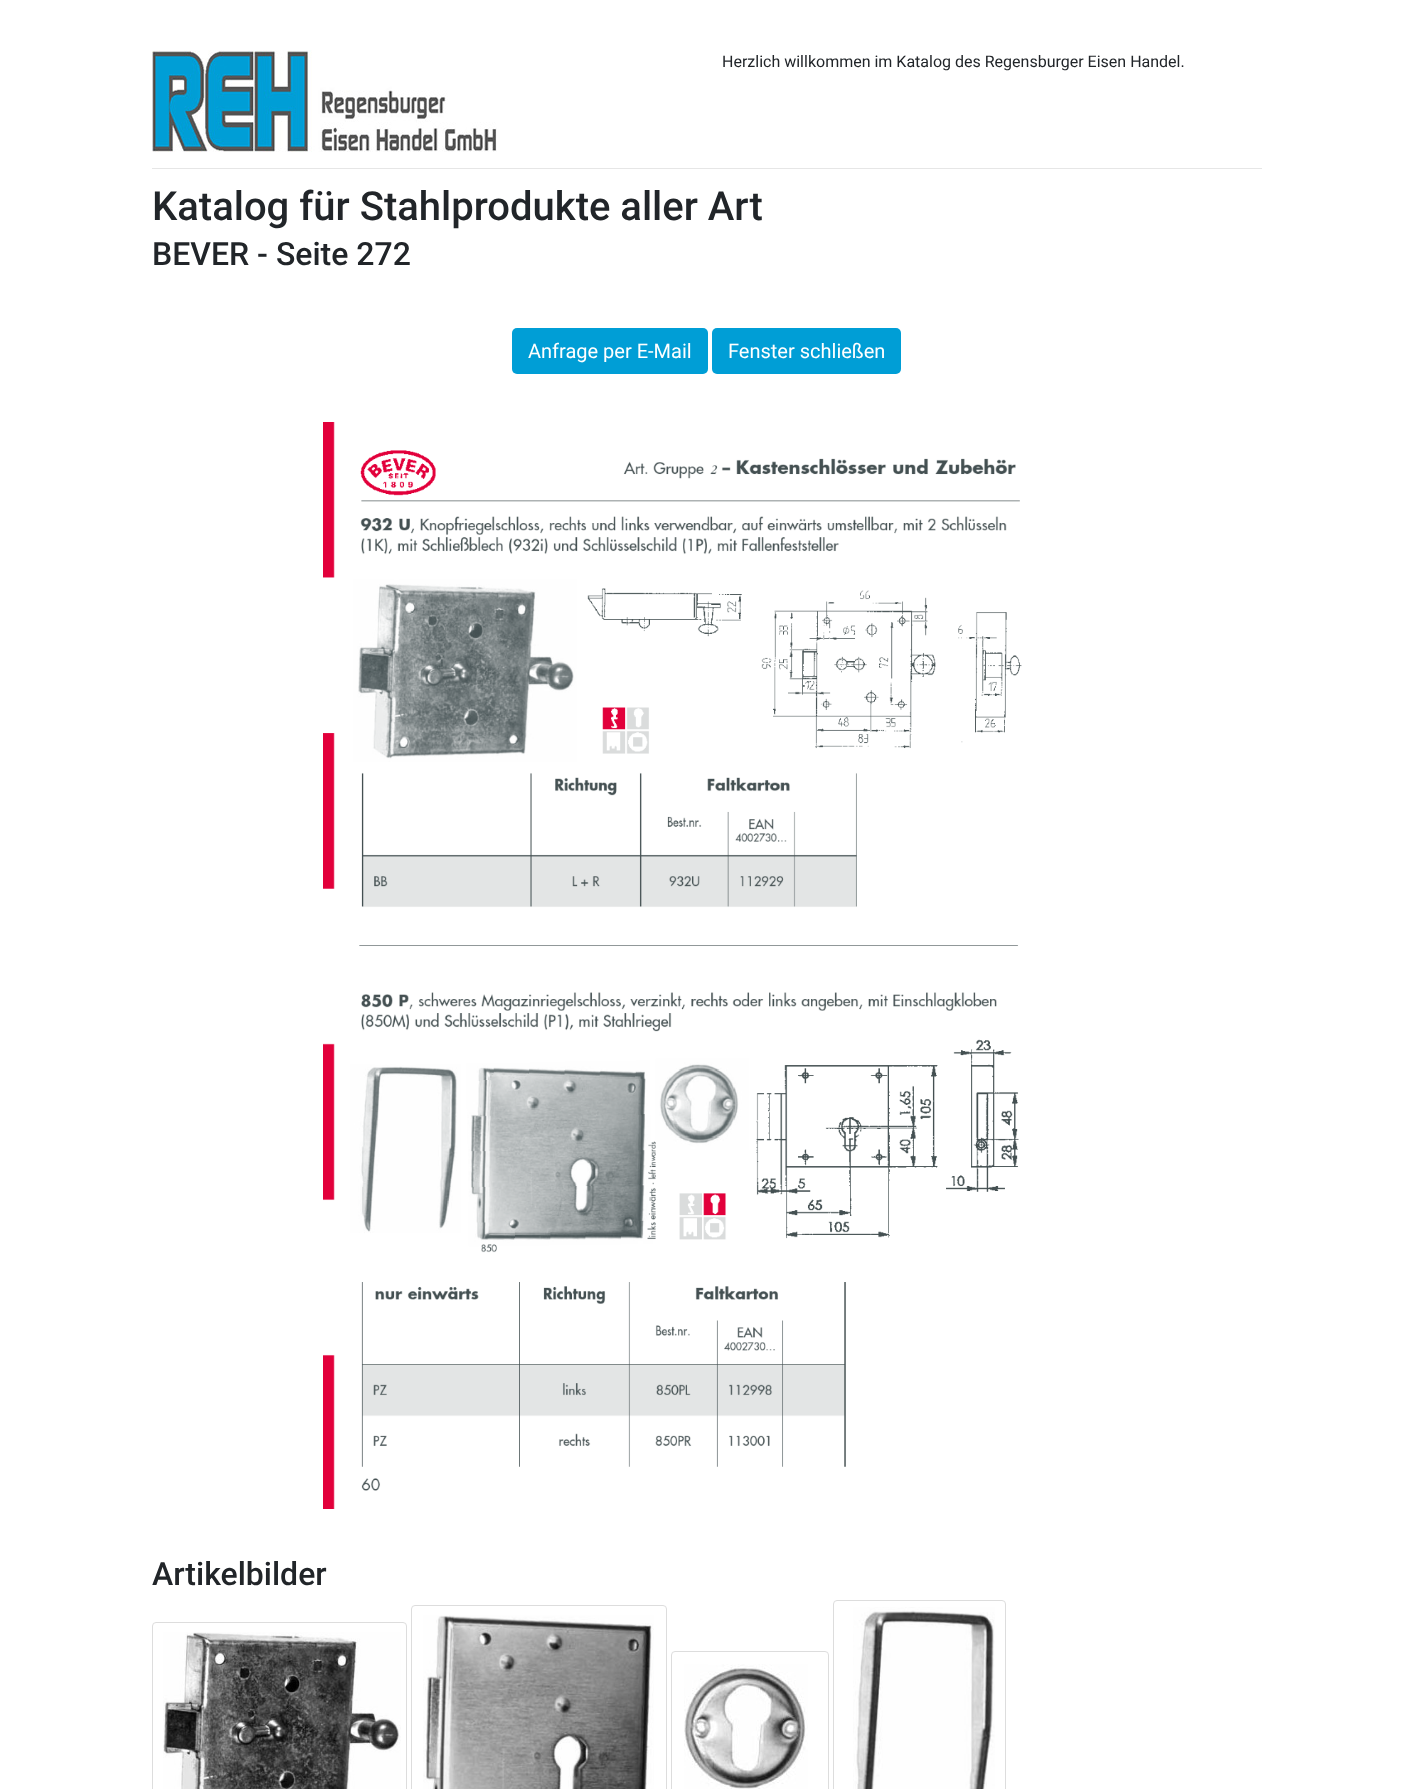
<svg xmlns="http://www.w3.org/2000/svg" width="1413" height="1789">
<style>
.a{font:16px Roboto;fill:#212529}
.b{font:500 40px Roboto;fill:#212529}
.c{font:500 32px Roboto;fill:#212529}
.d{font:20px Roboto;fill:#fff}
</style>
<rect width="100%" height="100%" fill="#fff"/>
<image href="1.png" x="152" y="50" width="345" height="102"/>
<path fill="#e6e6e6" d="M152 168h1110v1H152z"/>
<rect fill="#009ed6" x="512" y="328" width="196" height="46" rx="5"/>
<rect fill="#009ed6" x="712" y="328" width="189" height="46" rx="5"/>
<image href="2.png" x="323" y="422" width="699" height="1087"/>
<rect fill="none" stroke="#ddd" x="411.5" y="1605.5" width="255" height="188" rx="3.5"/>
<rect fill="none" stroke="#ddd" x="833.5" y="1600.5" width="172" height="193" rx="3.5"/>
<rect fill="none" stroke="#ddd" x="152.5" y="1622.5" width="254" height="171" rx="3.5"/>
<image href="3.png" x="423" y="1615" width="231" height="174"/>
<image href="4.png" x="853" y="1607" width="142" height="182"/>
<image href="5.png" x="163" y="1632" width="238" height="157"/>
<rect fill="none" stroke="#ddd" x="671.5" y="1651.5" width="157" height="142" rx="3.5"/>
<image href="6.png" x="684" y="1664" width="124" height="125"/>
<text class="a" x="722" y="67">Herzlich willkommen im Katalog des Regensburger Eisen Handel.</text>
<text class="b" x="152" y="220">Katalog für Stahlprodukte aller Art</text>
<text class="c" x="152" y="265">BEVER - Seite 272</text>
<text class="d" x="528" y="358">Anfrage per E-Mail</text>
<text class="d" x="728" y="358">Fenster schließen</text>
<text class="c" x="152" y="1585">Artikelbilder</text>
</svg>
